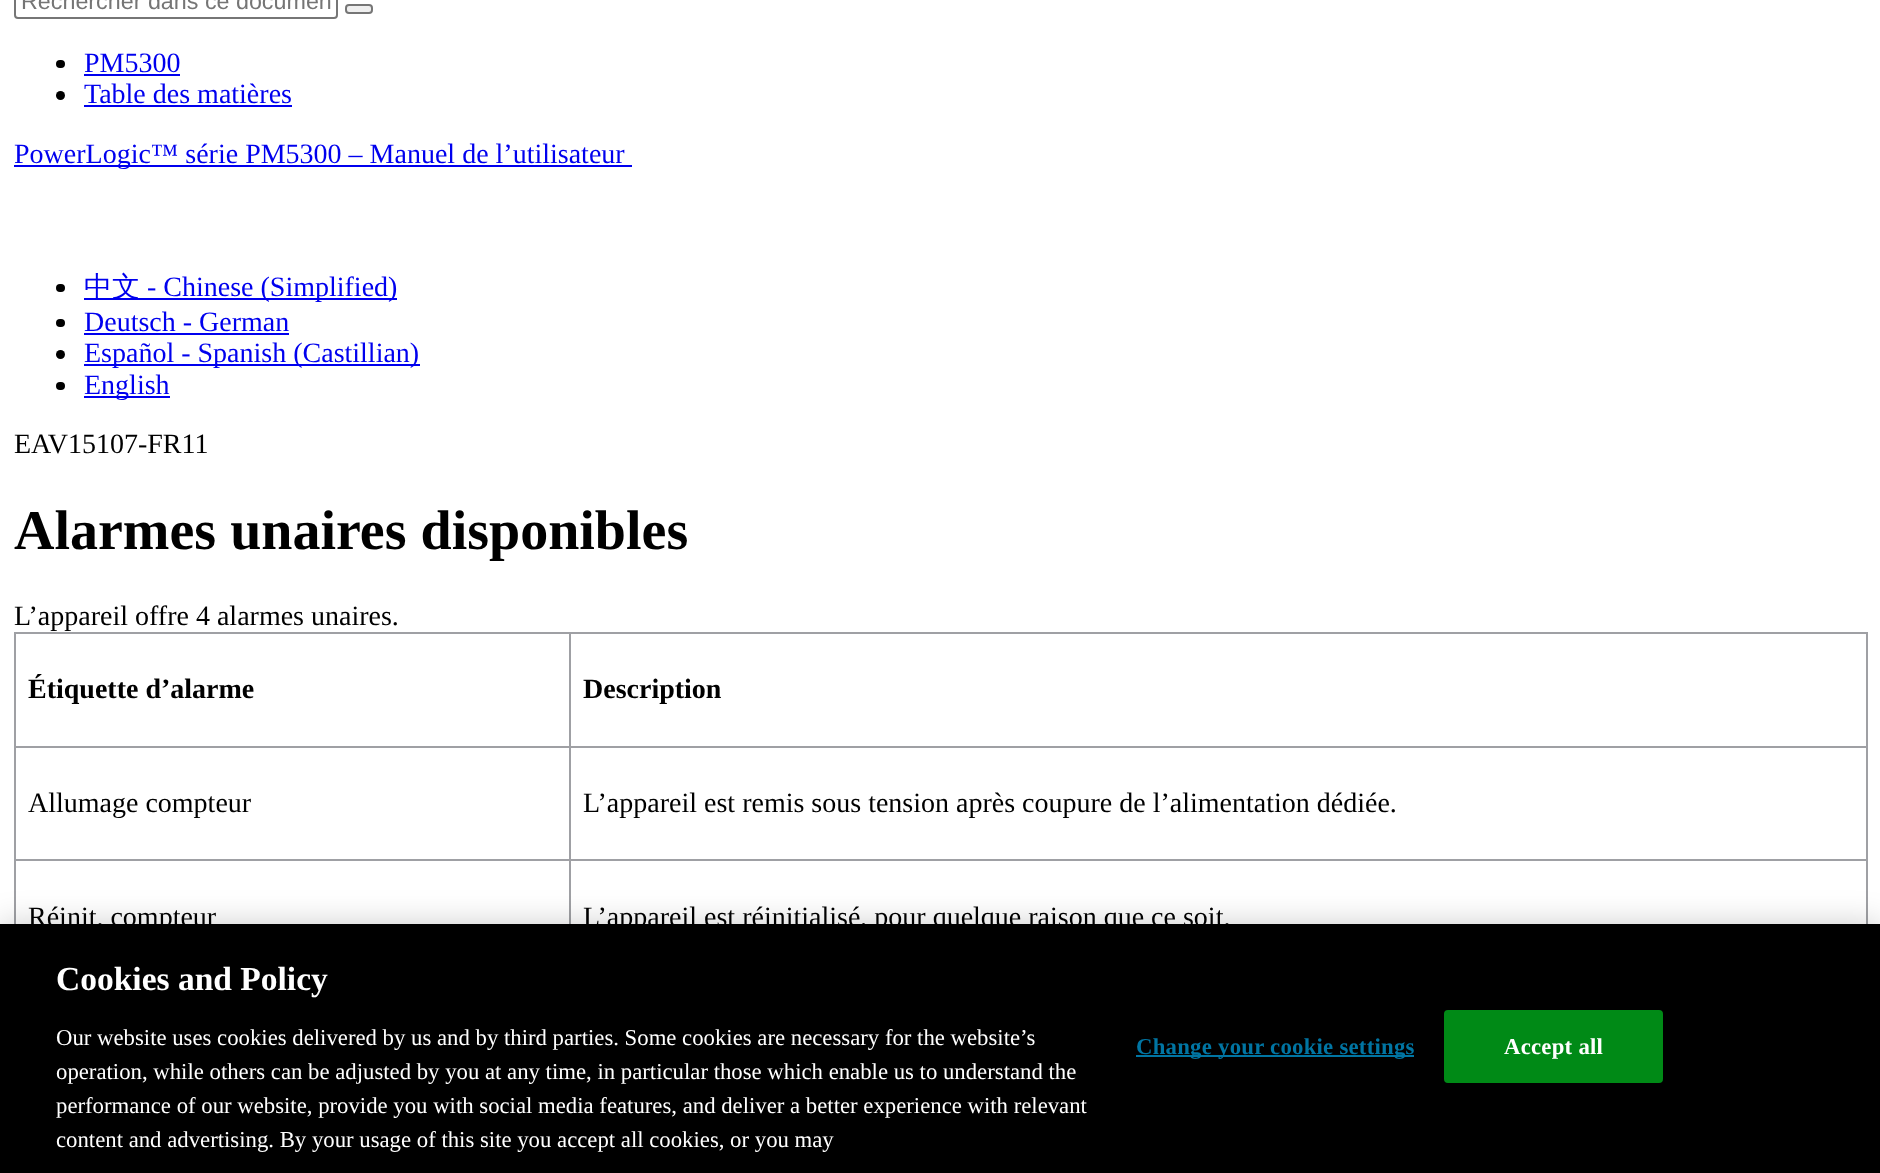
<svg xmlns="http://www.w3.org/2000/svg" width="1880" height="1173">
<style>
.a{font:23.3px Liberation Sans;fill:#757575}
.b{font:28px Liberation Serif;fill:#00e}
.c{font:500 28px WenQuanYi Zen Hei;fill:#00e}
.d{font:28px Liberation Serif;fill:#000}
.e{font:bold 56px Liberation Serif;fill:#000}
.f{font:bold 28px Liberation Serif;fill:#000}
.g{font:bold 33.5px Liberation Serif;fill:#fff}
.h{font:22.75px Liberation Serif;fill:#fff}
.i{font:bold 22.75px Liberation Serif;letter-spacing:0.25px;fill:#0075a3}
.j{font:bold 22.75px Liberation Serif;letter-spacing:0.25px;fill:#fff}
</style>
<rect width="100%" height="100%" fill="#fff"/>
<rect fill="none" stroke="#767676" stroke-width="2" x="15" y="-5" width="322" height="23" rx="3"/>
<rect fill="#efefef" stroke="#767676" stroke-width="2" x="346" y="5" width="26" height="8" rx="3"/>
<rect fill="#000" x="56" y="60" width="9" height="8" rx="4"/>
<path fill="#00e" d="M84 74h96v2H84z"/>
<circle fill="#000" cx="60.5" cy="95.5" r="4.5"/>
<path fill="#00e" d="M84 105h208v2H84z"/>
<path fill="#00e" d="M14 165h618v2H14z"/>
<rect fill="#000" x="56" y="284" width="9" height="8" rx="4"/>
<path fill="#00e" d="M84 298h313v2H84z"/>
<rect fill="#000" x="56" y="319" width="9" height="8" rx="4"/>
<path fill="#00e" d="M84 333h205v2H84z"/>
<circle fill="#000" cx="60.5" cy="354.5" r="4.5"/>
<path fill="#00e" d="M84 364h336v2H84z"/>
<rect fill="#000" x="56" y="382" width="9" height="8" rx="4"/>
<path fill="#00e" d="M84 396h86v2H84z"/>
<path fill="#9fa0a4" d="M14 632h1853v2H14z"/>
<path fill="#9fa0a4" d="M1866 746h2v178H1866z"/>
<path fill="#9fa0a4" d="M1866 632h2v115H1866z"/>
<path fill="#9fa0a4" d="M569 859h2v65H569z"/>
<path fill="#9fa0a4" d="M569 859h1298v2H569z"/>
<path fill="#9fa0a4" d="M569 746h2v115H569z"/>
<path fill="#9fa0a4" d="M569 746h1298v2H569z"/>
<path fill="#9fa0a4" d="M569 632h2v115H569z"/>
<path fill="#9fa0a4" d="M14 859h2v65H14z"/>
<path fill="#9fa0a4" d="M14 859h557v2H14z"/>
<path fill="#9fa0a4" d="M14 746h2v115H14z"/>
<path fill="#9fa0a4" d="M14 746h557v2H14z"/>
<path fill="#9fa0a4" d="M14 632h2v115H14z"/>
<path fill="#00000033" filter="blur(16px)" d="M0 924h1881v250H0z"/>
<path fill="#000" d="M0 924h1880v249H0z"/>
<path fill="#0075a3" d="M1136 1055h278v2H1136z"/>
<rect fill="#008a16" stroke="#008a16" stroke-width="2" x="1445" y="1011" width="217" height="71" rx="3"/>
<text class="a" x="21" y="9">Rechercher dans ce documen</text>
<text class="b" x="84" y="72">PM5300</text>
<text class="b" x="84" y="103">Table des matières</text>
<text class="b" x="14" y="163">PowerLogic™ série PM5300 – Manuel de l’utilisateur</text>
<text class="c" x="84" y="296">中文</text>
<text class="b" x="147" y="296">- Chinese (Simplified)</text>
<text class="b" x="84" y="331">Deutsch - German</text>
<text class="b" x="84" y="362">Español - Spanish (Castillian)</text>
<text class="b" x="84" y="394">English</text>
<text class="d" x="14" y="453">EAV15107-FR11</text>
<text class="e" x="14" y="549">Alarmes unaires disponibles</text>
<text class="d" x="14" y="625">L’appareil offre 4 alarmes unaires.</text>
<text class="f" x="28" y="698">Étiquette d’alarme</text>
<text class="f" x="583" y="698">Description</text>
<text class="d" x="28" y="812">Allumage compteur</text>
<text class="d" x="583" y="812">L’appareil est remis sous tension après coupure de l’alimentation dédiée.</text>
<text class="d" x="28" y="926">Réinit. compteur</text>
<text class="d" x="583" y="926">L’appareil est réinitialisé, pour quelque raison que ce soit.</text>
<text class="g" x="56" y="990">Cookies and Policy</text>
<text class="h" x="56" y="1045">Our website uses cookies delivered by us and by third parties. Some cookies are necessary for the website’s</text>
<text class="h" x="56" y="1079">operation, while others can be adjusted by you at any time, in particular those which enable us to understand the</text>
<text class="h" x="56" y="1113">performance of our website, provide you with social media features, and deliver a better experience with relevant</text>
<text class="h" x="56" y="1147">content and advertising. By your usage of this site you accept all cookies, or you may</text>
<text class="i" x="1136" y="1054">Change your cookie settings</text>
<text class="j" x="1504" y="1054">Accept all</text>
</svg>
